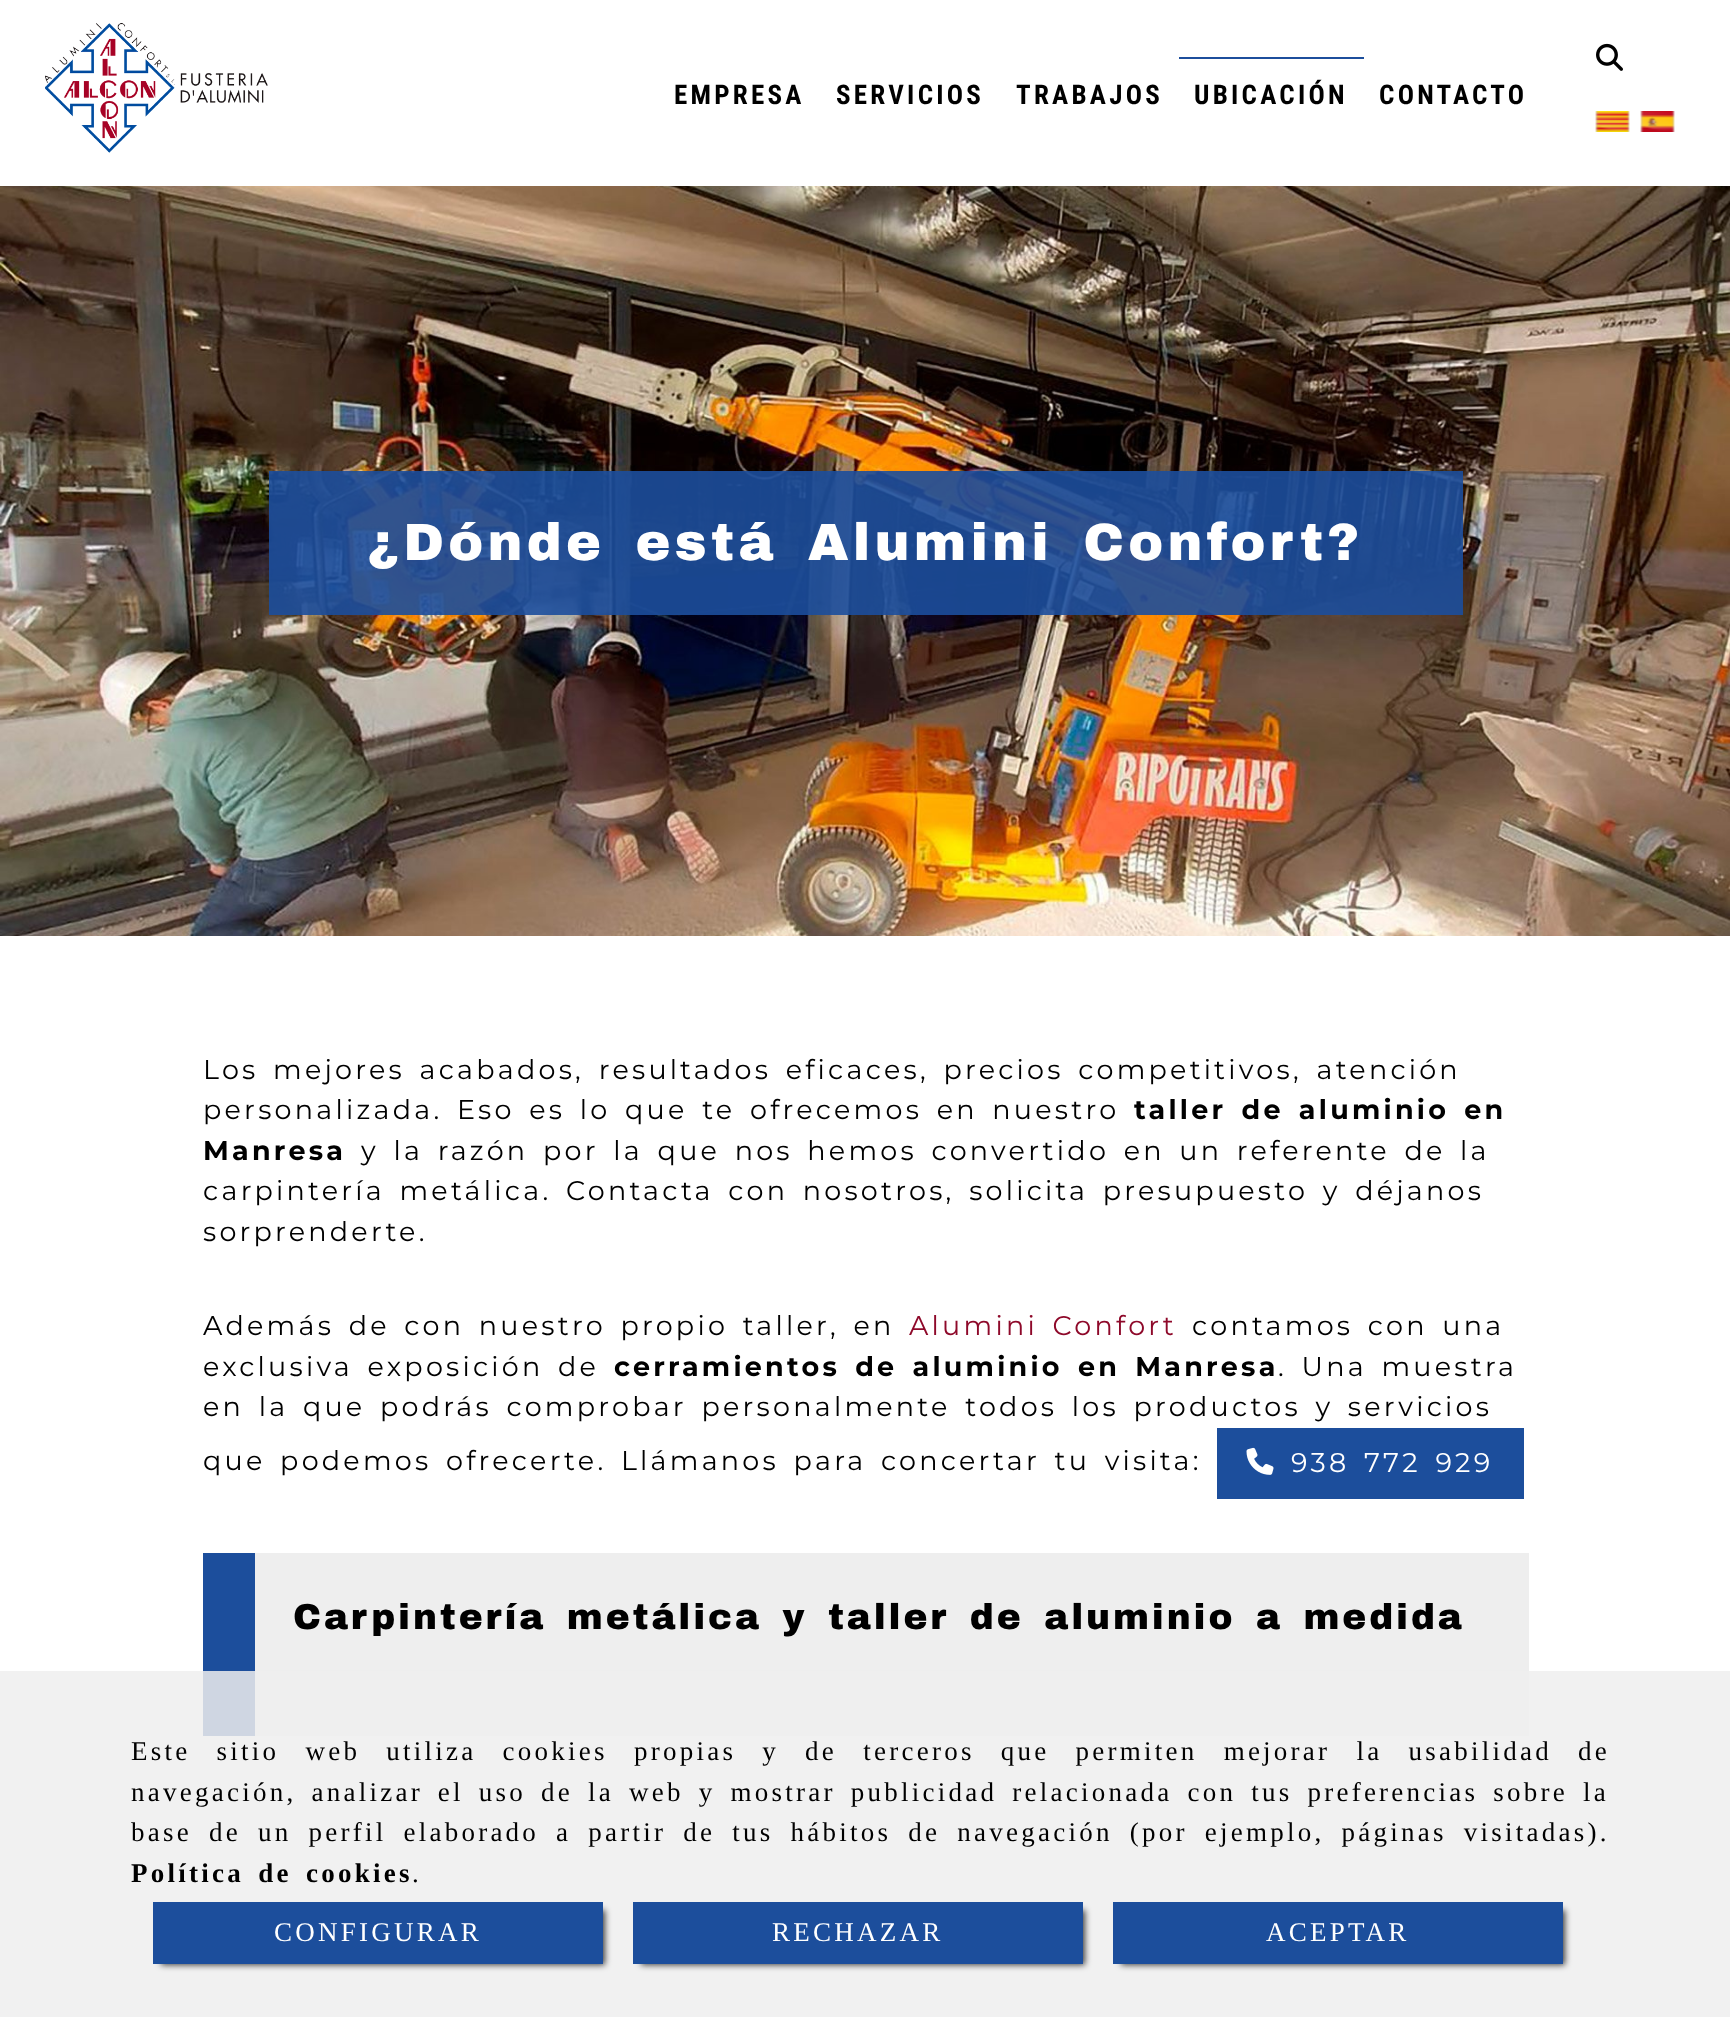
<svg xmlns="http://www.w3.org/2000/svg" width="1730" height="2017">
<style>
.a{font:bold 27px Roboto Condensed;letter-spacing:3.25px;fill:#000}
.b{font:900 52.5px Archivo Black;letter-spacing:4.2px;fill:#fff}
.c{font:100 27px Montserrat;letter-spacing:3.25px;fill:#000}
.d{font:bold 27px Montserrat;letter-spacing:3.25px;fill:#000}
.e{font:100 27px Montserrat;letter-spacing:3.25px;fill:#8e092a}
.f{font:100 27px Montserrat;letter-spacing:3.25px;fill:#fff}
.g{font:900 36px Archivo Black;letter-spacing:2.88px;fill:#000}
.h{font:27px Liberation Serif;letter-spacing:3.25px;fill:#000}
.i{font:bold 27px Liberation Serif;letter-spacing:3.25px;fill:#000}
.j{font:27px Liberation Serif;letter-spacing:3.25px;fill:#fff}
</style>
<rect width="100%" height="100%" fill="#fff"/>
<image href="1.png" x="45" y="23" width="223" height="130"/>
<path fill="#1c4e9c" d="M1179 57h185v2H1179z"/>
<image href="2.png" x="1596" y="43" width="27" height="28"/>
<image href="3.png" x="1595" y="111" width="35" height="21"/>
<image href="4.png" x="1640" y="111" width="35" height="21"/>
<image href="5.png" x="0" y="186" width="1730" height="750"/>
<path fill="#1c4e9ce6" d="M269 471h1194v144H269z"/>
<path fill="#1c4e9c" d="M1217 1428h307v71H1217z"/>
<image href="6.png" x="1246" y="1447" width="28" height="28"/>
<path fill="#eee" d="M255 1553h1274v183H255z"/>
<path fill="#1c4e9c" d="M203 1553h52v183H203z"/>
<path fill="#eeeeeed9" d="M0 1671h1730v346H0z"/>
<path fill="#000000bf" filter="blur(3px)" d="M161 1910h444v55H161z"/>
<path fill="#1c4e9c" d="M153 1902h450v62H153z"/>
<path fill="#000000bf" filter="blur(3px)" d="M641 1910h444v55H641z"/>
<path fill="#1c4e9c" d="M633 1902h450v62H633z"/>
<path fill="#000000bf" filter="blur(3px)" d="M1121 1910h444v55H1121z"/>
<path fill="#1c4e9c" d="M1113 1902h450v62H1113z"/>
<text class="a" x="674" y="104">EMPRESA</text>
<text class="a" x="836" y="104">SERVICIOS</text>
<text class="a" x="1016" y="104">TRABAJOS</text>
<text class="a" x="1194" y="104">UBICACIÓN</text>
<text class="a" x="1379" y="104">CONTACTO</text>
<text class="b" x="367" y="560" word-spacing="8.5">¿Dónde está Alumini Confort?</text>
<text class="c" x="203" y="1079" word-spacing="4.25">Los mejores acabados, resultados eficaces, precios competitivos, atención</text>
<text class="c" x="203" y="1119" word-spacing="4.25">personalizada. Eso es lo que te ofrecemos en nuestro</text>
<text class="d" x="1134" y="1119" word-spacing="4.25">taller de aluminio en</text>
<text class="d" x="203" y="1160">Manresa</text>
<text class="c" x="361" y="1160" word-spacing="4.25">y la razón por la que nos hemos convertido en un referente de la</text>
<text class="c" x="203" y="1200" word-spacing="4.25">carpintería metálica. Contacta con nosotros, solicita presupuesto y déjanos</text>
<text class="c" x="203" y="1241">sorprenderte.</text>
<text class="c" x="203" y="1335" word-spacing="4.25">Además de con nuestro propio taller, en</text>
<text class="e" x="909" y="1335" word-spacing="4.25">Alumini Confort</text>
<text class="c" x="1192" y="1335" word-spacing="4.25">contamos con una</text>
<text class="c" x="203" y="1376" word-spacing="4.25">exclusiva exposición de</text>
<text class="d" x="614" y="1376" word-spacing="4.25">cerramientos de aluminio en Manresa</text>
<text class="c" x="1278" y="1376" word-spacing="4.25">. Una muestra</text>
<text class="c" x="203" y="1416" word-spacing="4.25">en la que podrás comprobar personalmente todos los productos y servicios</text>
<text class="c" x="203" y="1470" word-spacing="4.25">que podemos ofrecerte. Llámanos para concertar tu visita:</text>
<text class="f" x="1291" y="1472" word-spacing="4.25">938 772 929</text>
<text class="g" x="293" y="1629" word-spacing="5.75">Carpintería metálica y taller de aluminio a medida</text>
<text class="h" x="131" y="1760" word-spacing="16.1">Este sitio web utiliza cookies propias y de terceros que permiten mejorar la usabilidad de</text>
<text class="h" x="131" y="1801" word-spacing="5">navegación, analizar el uso de la web y mostrar publicidad relacionada con tus preferencias sobre la</text>
<text class="h" x="131" y="1841" word-spacing="7">base de un perfil elaborado a partir de tus hábitos de navegación (por ejemplo, páginas visitadas).</text>
<text class="i" x="131" y="1882" word-spacing="4.25">Política de cookies</text>
<text class="h" x="412" y="1882">.</text>
<text class="j" x="274" y="1941">CONFIGURAR</text>
<text class="j" x="772" y="1941">RECHAZAR</text>
<text class="j" x="1266" y="1941">ACEPTAR</text>
</svg>
